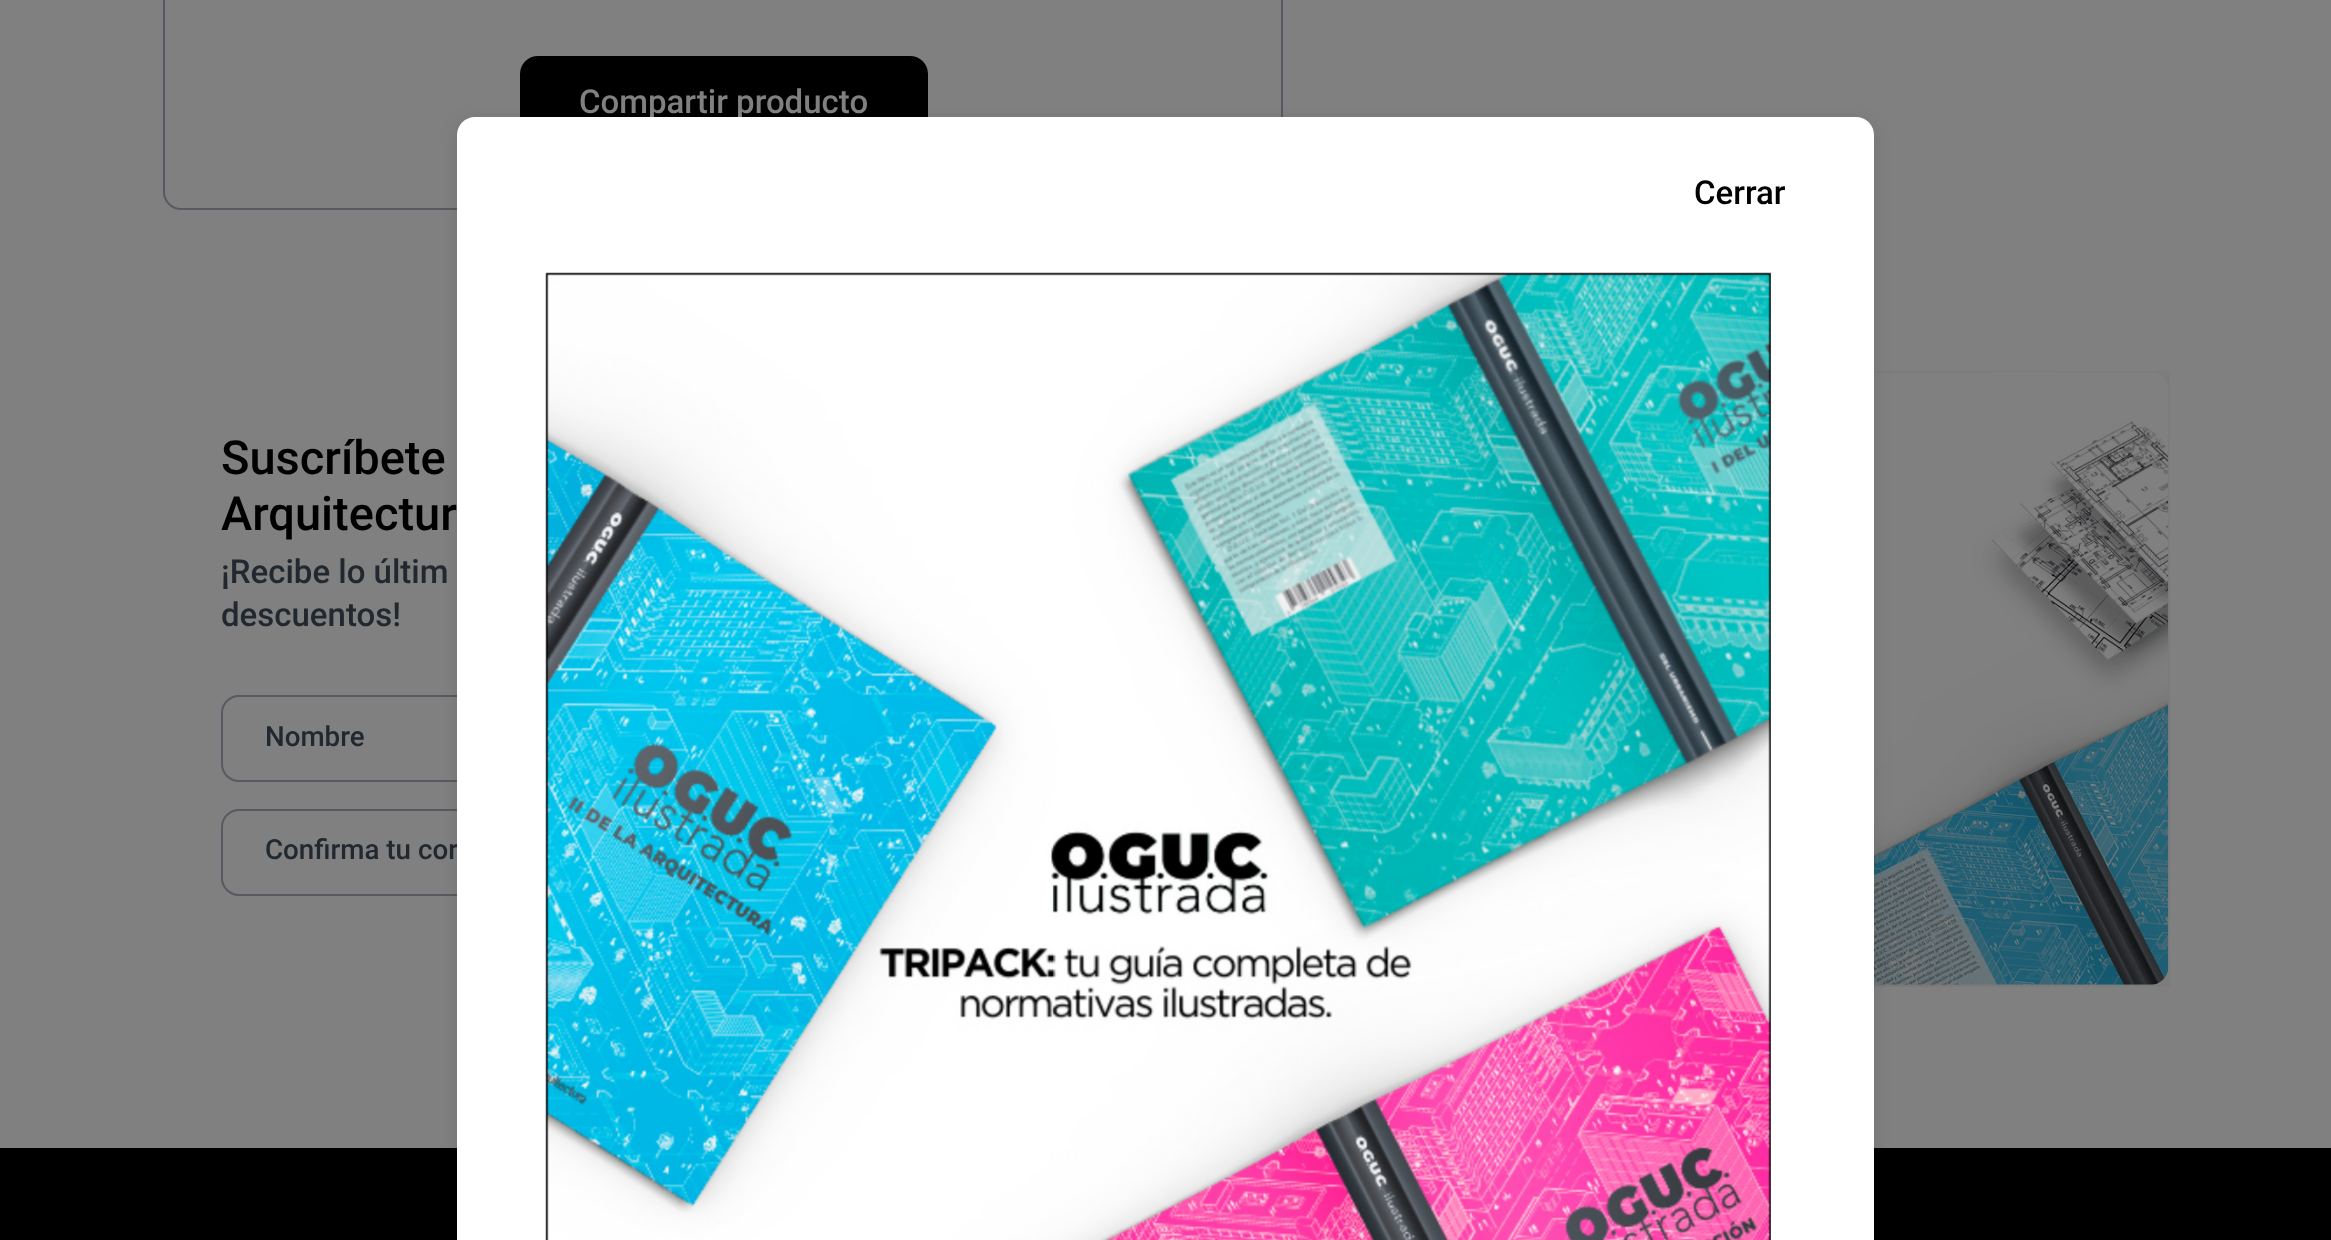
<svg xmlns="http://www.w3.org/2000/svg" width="2331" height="1240">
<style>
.a{font:500 33px Roboto;fill:#808080}
.b{font:500 47px Roboto;fill:#000}
.c{font:500 33px Roboto;fill:#21282f}
.d{font:500 27.75px Roboto;fill:#21282f}
.e{font:500 33px Roboto;fill:#000}
</style>
<rect width="100%" height="100%" fill="#808080"/>
<rect fill="none" stroke="#575a60" stroke-width="2" x="164" y="-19" width="1118" height="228" rx="17"/>
<rect fill="#000" x="520" y="56" width="408" height="95" rx="18"/>
<rect fill="none" stroke="#575a60" stroke-width="2" x="222" y="696" width="367" height="85" rx="17"/>
<rect fill="none" stroke="#575a60" stroke-width="2" x="222" y="810" width="533" height="85" rx="17"/>
<image href="1.png" x="1874" y="371" width="296" height="616"/>
<path fill="#000" d="M0 1148h2331v92H0z"/>
<rect fill="#0000001a" filter="blur(9px)" x="457" y="121" width="1417" height="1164" rx="18"/>
<text class="a" x="579" y="113">Compartir producto</text>
<text class="b" x="221" y="474">Suscríbete</text>
<text class="b" x="221" y="530">Arquitectur</text>
<text class="c" x="221" y="583">¡Recibe lo últim</text>
<text class="c" x="221" y="626">descuentos!</text>
<text class="d" x="265" y="746">Nombre</text>
<text class="d" x="265" y="859">Confirma tu cor</text>
<path fill="#fff" d="M475 117h1381c10 0 18 8 18 18v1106h-1417v-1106c0-10 8-18 18-18z"/>
<text class="e" x="1694" y="204">Cerrar</text>
<image href="2.png" x="545" y="272" width="1226" height="968"/>
</svg>
